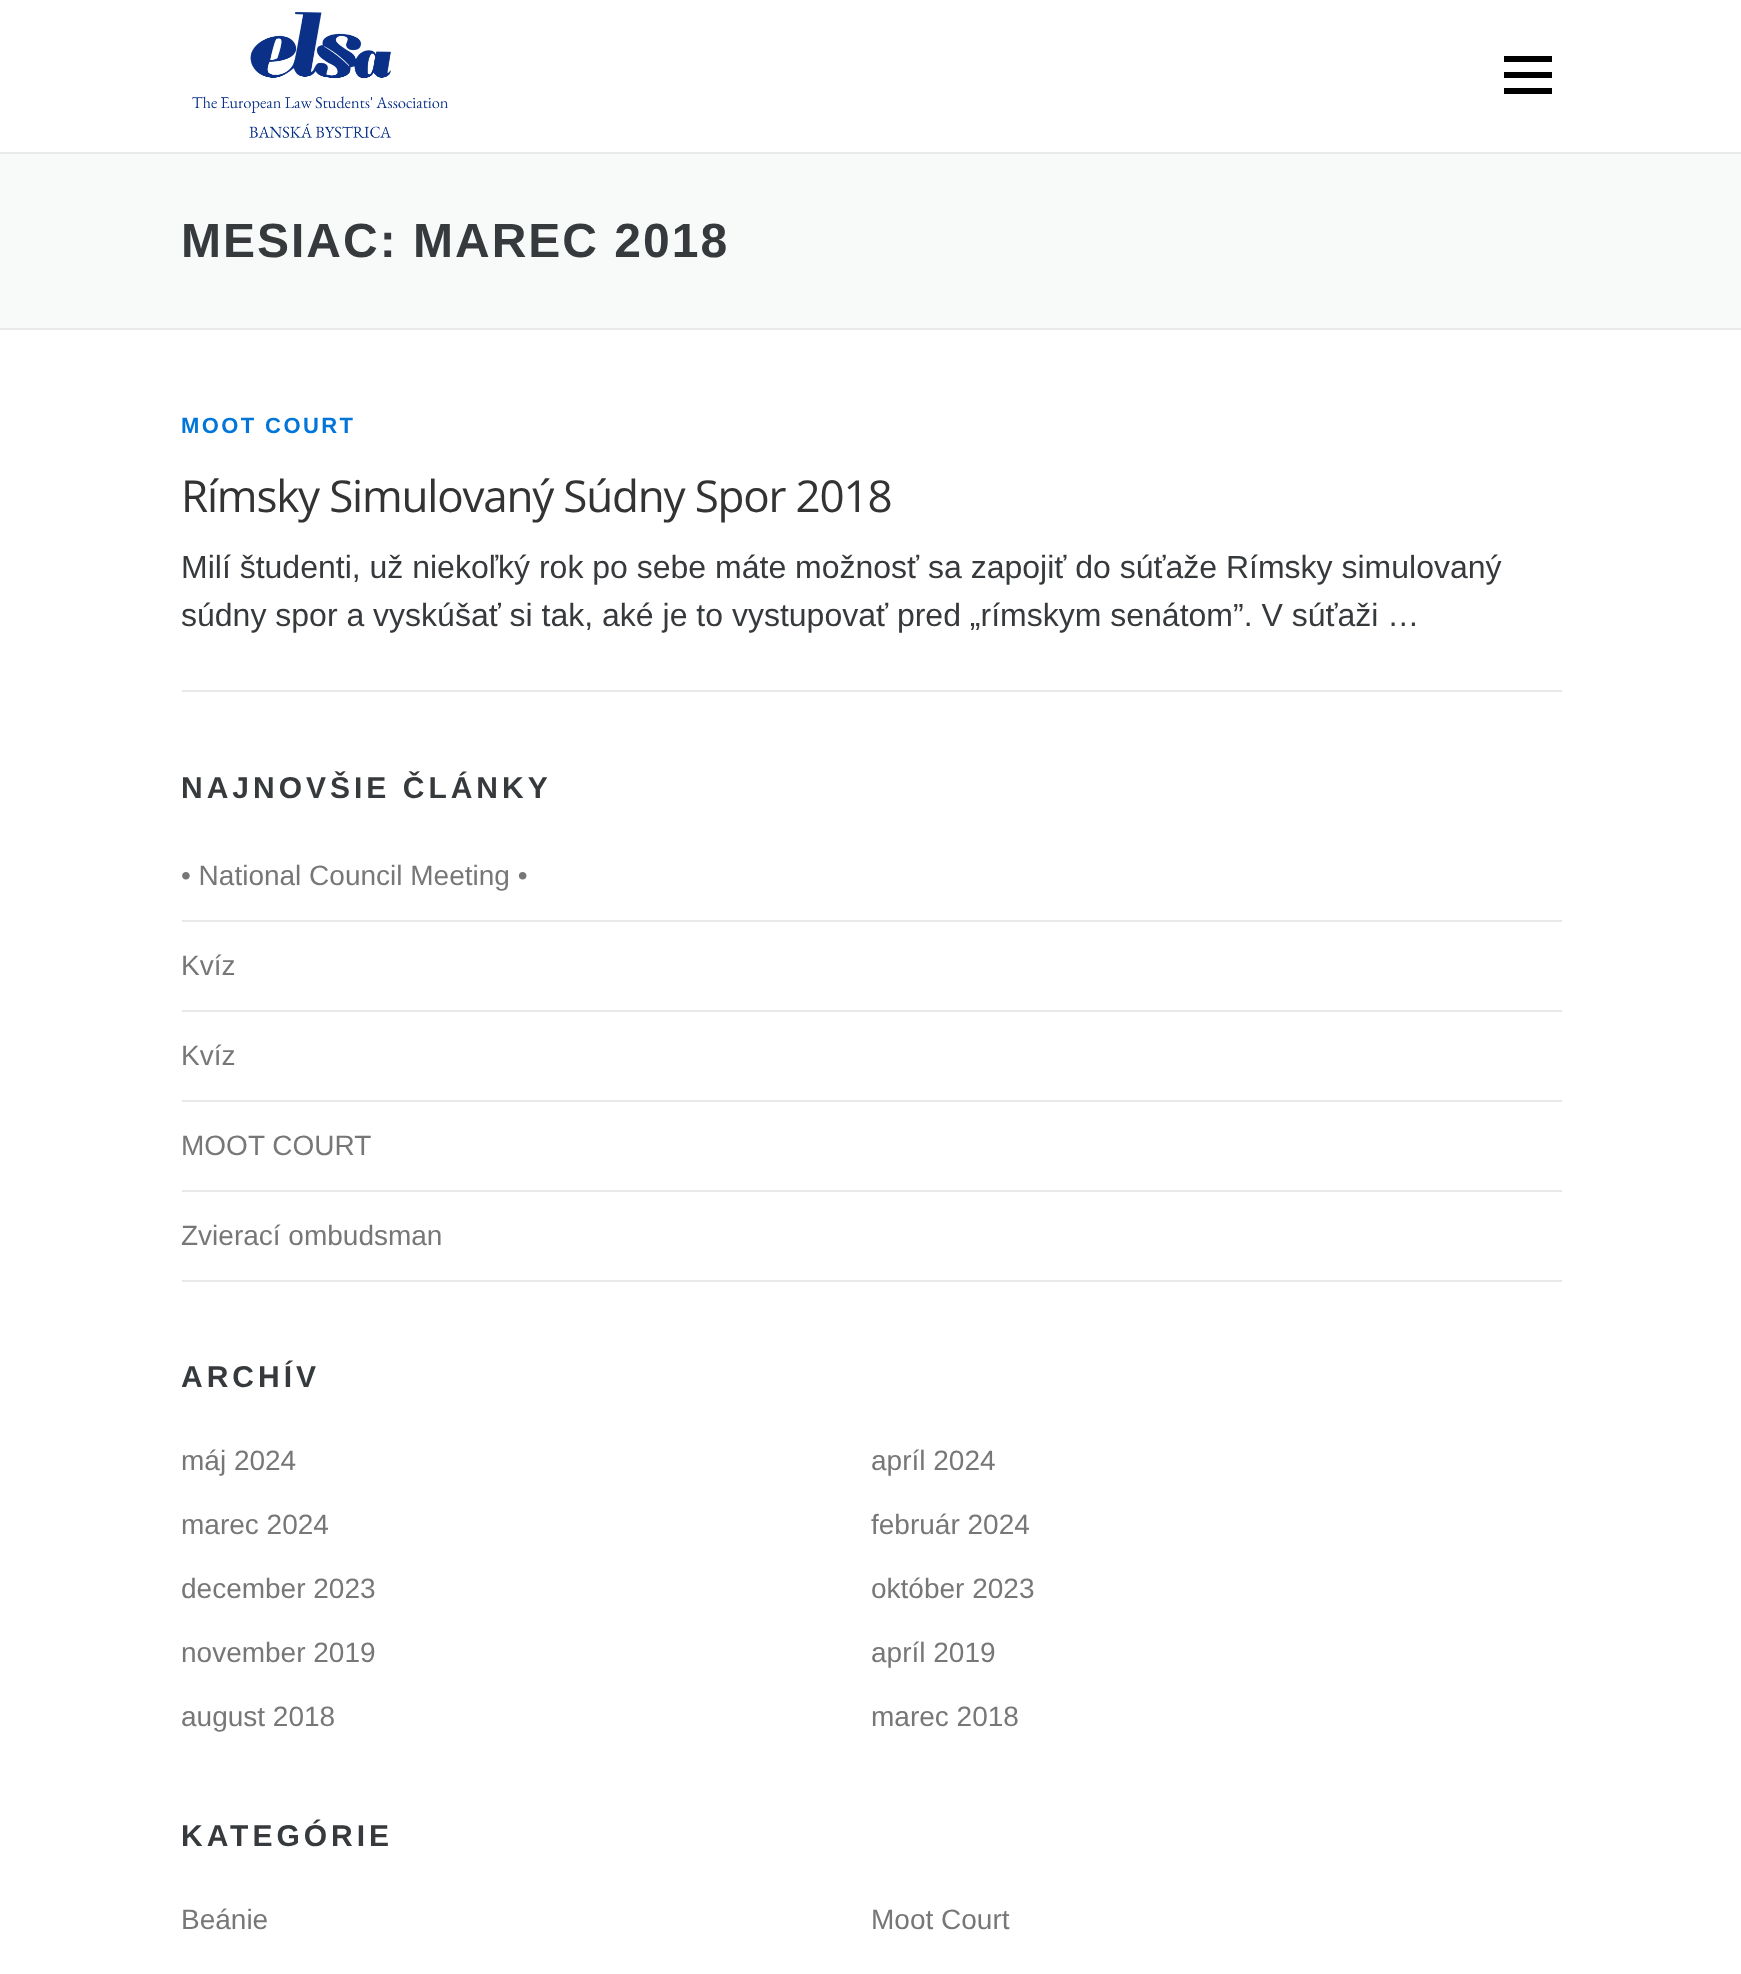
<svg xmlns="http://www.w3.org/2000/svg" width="1741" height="1974">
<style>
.a{font:bold 48px Liberation Sans;letter-spacing:2px;fill:#373a3c}
.b{font:bold 22px Liberation Sans;letter-spacing:2.4px;fill:#0275d8}
.c{font:44px Open Sans;letter-spacing:-1.2px;fill:#333}
.d{font:32px Liberation Sans;fill:#373a3c}
.e{font:bold 30px Liberation Sans;letter-spacing:4px;fill:#373a3c}
.f{font:28px Liberation Sans;fill:#777}
</style>
<rect width="100%" height="100%" fill="#fff"/>
<image href="1.png" x="192" y="12" width="256" height="126"/>
<path fill="#000" d="M1504 72h48v6H1504z"/>
<path fill="#000" d="M1504 56h48v6H1504z"/>
<path fill="#000" d="M1504 88h48v6H1504z"/>
<path fill="#f8f9f9" d="M0 154h1741v174H0z"/>
<path fill="#e9e9e9" d="M0 152h1741v2H0z"/>
<path fill="#e9e9e9" d="M0 328h1741v2H0z"/>
<path fill="#e9e9e9" d="M182 690h1380v2H182z"/>
<path fill="#e9e9e9" d="M182 920h1380v2H182z"/>
<path fill="#e9e9e9" d="M182 1010h1380v2H182z"/>
<path fill="#e9e9e9" d="M182 1100h1380v2H182z"/>
<path fill="#e9e9e9" d="M182 1190h1380v2H182z"/>
<path fill="#e9e9e9" d="M182 1280h1380v2H182z"/>
<text class="a" x="181" y="257">MESIAC: MAREC 2018</text>
<text class="b" x="181" y="433">MOOT COURT</text>
<text class="c" x="181" y="512">Rímsky Simulovaný Súdny Spor 2018</text>
<text class="d" x="181" y="578">Milí študenti, už niekoľký rok po sebe máte možnosť sa zapojiť do súťaže Rímsky simulovaný</text>
<text class="d" x="181" y="626">súdny spor a vyskúšať si tak, aké je to vystupovať pred „rímskym senátom”. V súťaži …</text>
<text class="e" x="181" y="798">NAJNOVŠIE ČLÁNKY</text>
<text class="f" x="181" y="885">• National Council Meeting •</text>
<text class="f" x="181" y="975">Kvíz</text>
<text class="f" x="181" y="1065">Kvíz</text>
<text class="f" x="181" y="1155">MOOT COURT</text>
<text class="f" x="181" y="1245">Zvierací ombudsman</text>
<text class="e" x="181" y="1387">ARCHÍV</text>
<text class="f" x="181" y="1470">máj 2024</text>
<text class="f" x="871" y="1470">apríl 2024</text>
<text class="f" x="181" y="1534">marec 2024</text>
<text class="f" x="871" y="1534">február 2024</text>
<text class="f" x="181" y="1598">december 2023</text>
<text class="f" x="871" y="1598">október 2023</text>
<text class="f" x="181" y="1662">november 2019</text>
<text class="f" x="871" y="1662">apríl 2019</text>
<text class="f" x="181" y="1726">august 2018</text>
<text class="f" x="871" y="1726">marec 2018</text>
<text class="e" x="181" y="1846">KATEGÓRIE</text>
<text class="f" x="181" y="1929">Beánie</text>
<text class="f" x="871" y="1929">Moot Court</text>
</svg>
